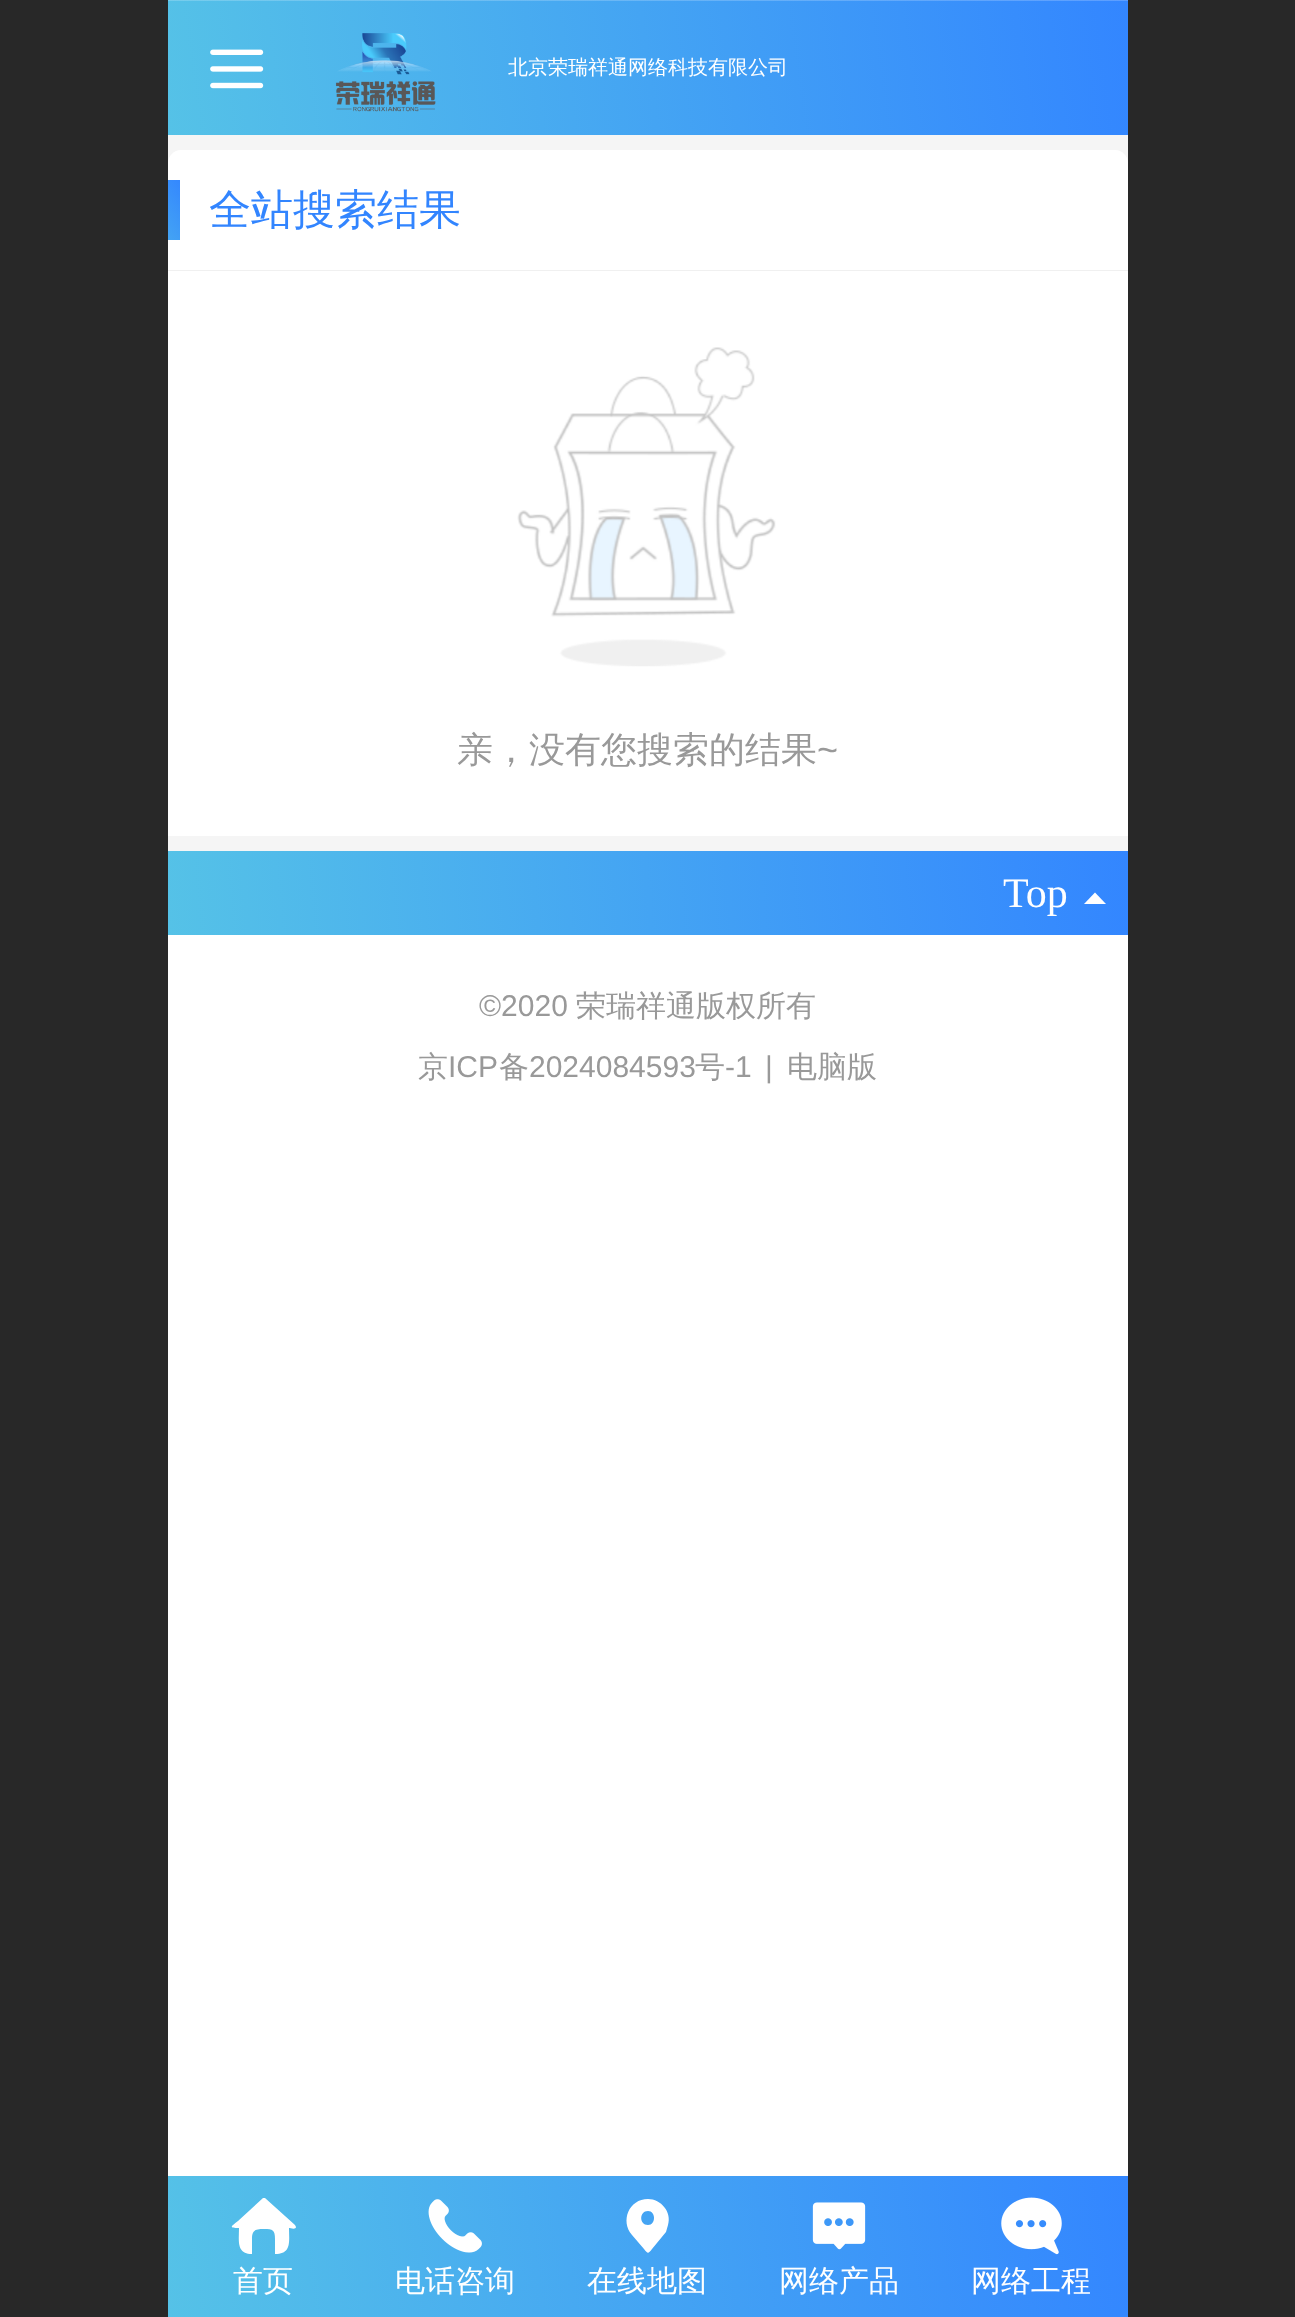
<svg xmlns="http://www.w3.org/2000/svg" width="1295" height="2317">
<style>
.a{font:500 20px WenQuanYi Zen Hei;fill:#fff}
.b{font:500 42px WenQuanYi Zen Hei;fill:#3285ff}
.c{font:500 36px WenQuanYi Zen Hei;fill:#999}
.d{font:36px Liberation Sans;fill:#999}
.e{font:42px Liberation Serif;fill:#fff}
.f{font:30px Liberation Sans;fill:#999}
.g{font:500 30px WenQuanYi Zen Hei;fill:#999}
.h{font:500 30px WenQuanYi Zen Hei;fill:#fff}
</style>
<defs>
<linearGradient id="g1" gradientUnits="userSpaceOnUse" x1="168" y1="135" x2="1128" y2="0"><stop offset="0" stop-color="#55c2e7"/><stop offset="1" stop-color="#3386ff"/></linearGradient>
<linearGradient id="g2" gradientUnits="userSpaceOnUse" x1="168" y1="135" x2="1128" y2="0"><stop offset="0" stop-color="#77ceec"/><stop offset="1" stop-color="#5c9eff"/></linearGradient>
<linearGradient id="g3" gradientUnits="userSpaceOnUse" x1="105" y1="240" x2="183" y2="180"><stop offset="0" stop-color="#55c2e7"/><stop offset="1" stop-color="#3386ff"/></linearGradient>
<linearGradient id="g4" gradientUnits="userSpaceOnUse" x1="168" y1="935" x2="1128" y2="851"><stop offset="0" stop-color="#55c2e7"/><stop offset="1" stop-color="#3386ff"/></linearGradient>
<linearGradient id="g5" gradientUnits="userSpaceOnUse" x1="168" y1="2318" x2="1128" y2="2176"><stop offset="0" stop-color="#55c2e7"/><stop offset="1" stop-color="#3386ff"/></linearGradient>
</defs>
<rect width="100%" height="100%" fill="#fff"/>
<path fill="#282828" d="M0 0h168v2317H0z"/>
<path fill="url(#g1)" d="M168 1h960v134H168z"/>
<image href="1.png" x="210" y="49" width="54" height="40"/>
<path fill="url(#g2)" d="M168 0h960v1H168z"/>
<image href="2.png" x="335" y="33" width="101" height="79"/>
<path fill="#f5f5f5" d="M168 135h960v716H168z"/>
<path fill="#fff" d="M181 150h934c7 0 13 6 13 13v108h-960v-108c0-7 6-13 13-13z"/>
<path fill="#f0f0f0" d="M168 270h960v1H168z"/>
<path fill="url(#g3)" d="M168 180h12v60H168z"/>
<path fill="#fff" d="M168 271h960v565H168z"/>
<image href="3.png" x="517" y="347" width="259" height="320"/>
<path fill="url(#g4)" d="M168 851h960v84H168z"/>
<path fill="#fff" d="M1106 904h-22l11-11.5z"/>
<path fill="url(#g5)" d="M168 2176h960v141H168z"/>
<path fill="#fff" d="M295 2225l-30-27h-2l-25 23c-8 6-9 7 1 7c0 12-3 26 13 26v-15c0-9 3-10 12-10c9 0 11 1 11 10v15c17 0 14-13 14-26c1 0 7 2 7-1z"/>
<image href="4.png" x="428" y="2199" width="54" height="54"/>
<path fill="#fff" d="M648 2199c-19 0-28 22-16 36l12 14c4 5 4 5 8 0l14-17l2-7c4-13-7-26-20-26zm0 26c-9 0-9-14 0-14c8 0 8 14 0 14z"/>
<image href="5.png" x="812" y="2202" width="54" height="48"/>
<image href="6.png" x="1001" y="2197" width="61" height="58"/>
<path fill="#282828" d="M1128 0h167v2317H1128z"/>
<text class="a" x="508" y="74">北京荣瑞祥通网络科技有限公司</text>
<text class="b" x="209" y="224">全站搜索结果</text>
<text class="c" x="457" y="762">亲，没有您搜索的结果</text>
<text class="d" x="817" y="762">~</text>
<text class="e" x="1003" y="907">Top</text>
<text class="f" x="479" y="1016">©2020</text>
<text class="g" x="576" y="1016">荣瑞祥通版权所有</text>
<text class="g" x="418" y="1077">京</text>
<text class="f" x="448" y="1077">ICP</text>
<text class="g" x="499" y="1077">备</text>
<text class="f" x="529" y="1077">2024084593</text>
<text class="g" x="695" y="1077">号</text>
<text class="f" x="725" y="1077">-1</text>
<text class="f" x="765" y="1077">|</text>
<text class="g" x="787" y="1077">电脑版</text>
<text class="h" x="233" y="2291">首页</text>
<text class="h" x="395" y="2291">电话咨询</text>
<text class="h" x="587" y="2291">在线地图</text>
<text class="h" x="779" y="2291">网络产品</text>
<text class="h" x="971" y="2291">网络工程</text>
</svg>
